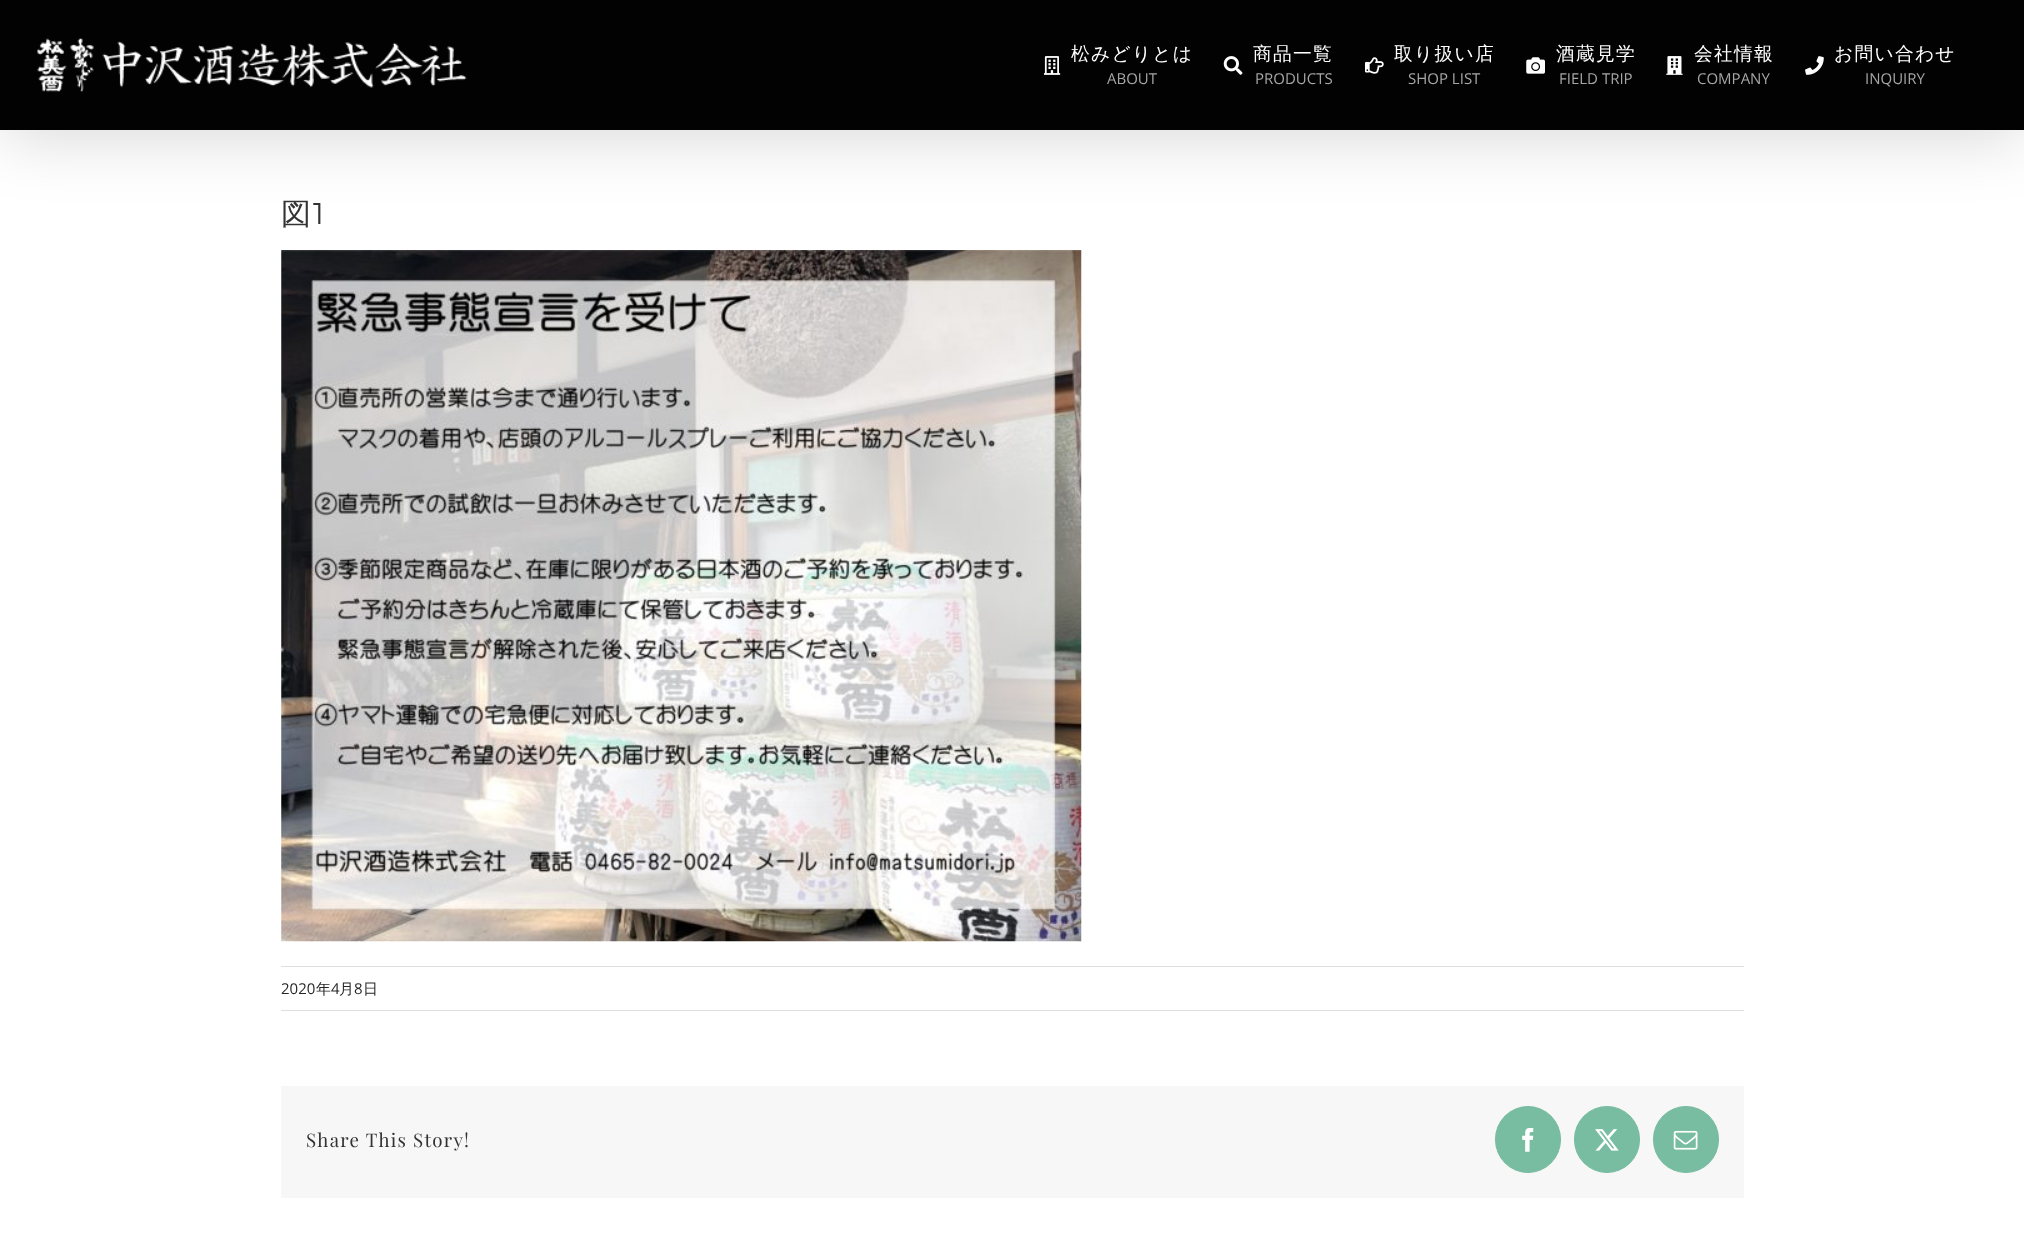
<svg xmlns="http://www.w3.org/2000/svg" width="2024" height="1246">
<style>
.a{font:500 18.75px WenQuanYi Zen Hei;letter-spacing:1.25px;fill:#fff}
.b{font:15px Open Sans;fill:#a6a6a6}
.c{font:500 30px WenQuanYi Zen Hei;letter-spacing:1.25px;fill:#333}
.d{font:100 30px Montserrat;letter-spacing:1.25px;fill:#333}
.e{font:15px Open Sans;fill:#262626}
.f{font:500 15px WenQuanYi Zen Hei;fill:#262626}
.g{font:18.75px Playfair Display;letter-spacing:1.25px;fill:#333}
</style>
<rect width="100%" height="100%" fill="#fff"/>
<path fill="#00000024" filter="blur(31px)" d="M3 15h2020v125H3z"/>
<path fill="#020202" d="M0 0h2024v130H0z"/>
<image href="1.png" x="37" y="38" width="430" height="54"/>
<image href="2.png" x="1044" y="56" width="17" height="19"/>
<image href="3.png" x="1223" y="56" width="20" height="19"/>
<image href="4.png" x="1365" y="57" width="19" height="17"/>
<image href="5.png" x="1526" y="57" width="19" height="17"/>
<image href="6.png" x="1666" y="56" width="17" height="19"/>
<image href="7.png" x="1805" y="56" width="19" height="19"/>
<image href="8.png" x="281" y="250" width="801" height="692"/>
<path fill="#e0dede" d="M281 966h1463v1H281z"/>
<path fill="#e0dede" d="M281 1010h1463v1H281z"/>
<path fill="#f7f7f7" d="M281 1086h1463v112H281z"/>
<rect fill="#78bca1" stroke="#78bca1" x="1495.5" y="1106.5" width="65" height="66" rx="32.5"/>
<image href="9.png" x="1522" y="1128" width="12" height="24"/>
<rect fill="#78bca1" stroke="#78bca1" x="1574.5" y="1106.5" width="65" height="66" rx="32.5"/>
<image href="10.png" x="1595" y="1129" width="24" height="22"/>
<rect fill="#78bca1" stroke="#78bca1" x="1653.5" y="1106.5" width="65" height="66" rx="32.5"/>
<image href="11.png" x="1673" y="1130" width="25" height="20"/>
<text class="a" x="1071" y="60">松みどりとは</text>
<text class="b" x="1107" y="84">ABOUT</text>
<text class="a" x="1253" y="60">商品一覧</text>
<text class="b" x="1255" y="84">PRODUCTS</text>
<text class="a" x="1394" y="60">取り扱い店</text>
<text class="b" x="1408" y="84">SHOP LIST</text>
<text class="a" x="1556" y="60">酒蔵見学</text>
<text class="b" x="1559" y="84">FIELD TRIP</text>
<text class="a" x="1694" y="60">会社情報</text>
<text class="b" x="1697" y="84">COMPANY</text>
<text class="a" x="1834" y="60">お問い合わせ</text>
<text class="b" x="1865" y="84">INQUIRY</text>
<text class="c" x="281" y="224">図</text>
<text class="d" x="313" y="224">1</text>
<text class="e" x="281" y="994">2020</text>
<text class="f" x="316" y="994">年</text>
<text class="e" x="331" y="994">4</text>
<text class="f" x="339" y="994">月</text>
<text class="e" x="354" y="994">8</text>
<text class="f" x="363" y="994">日</text>
<text class="g" x="306" y="1147">Share This Story!</text>
</svg>
